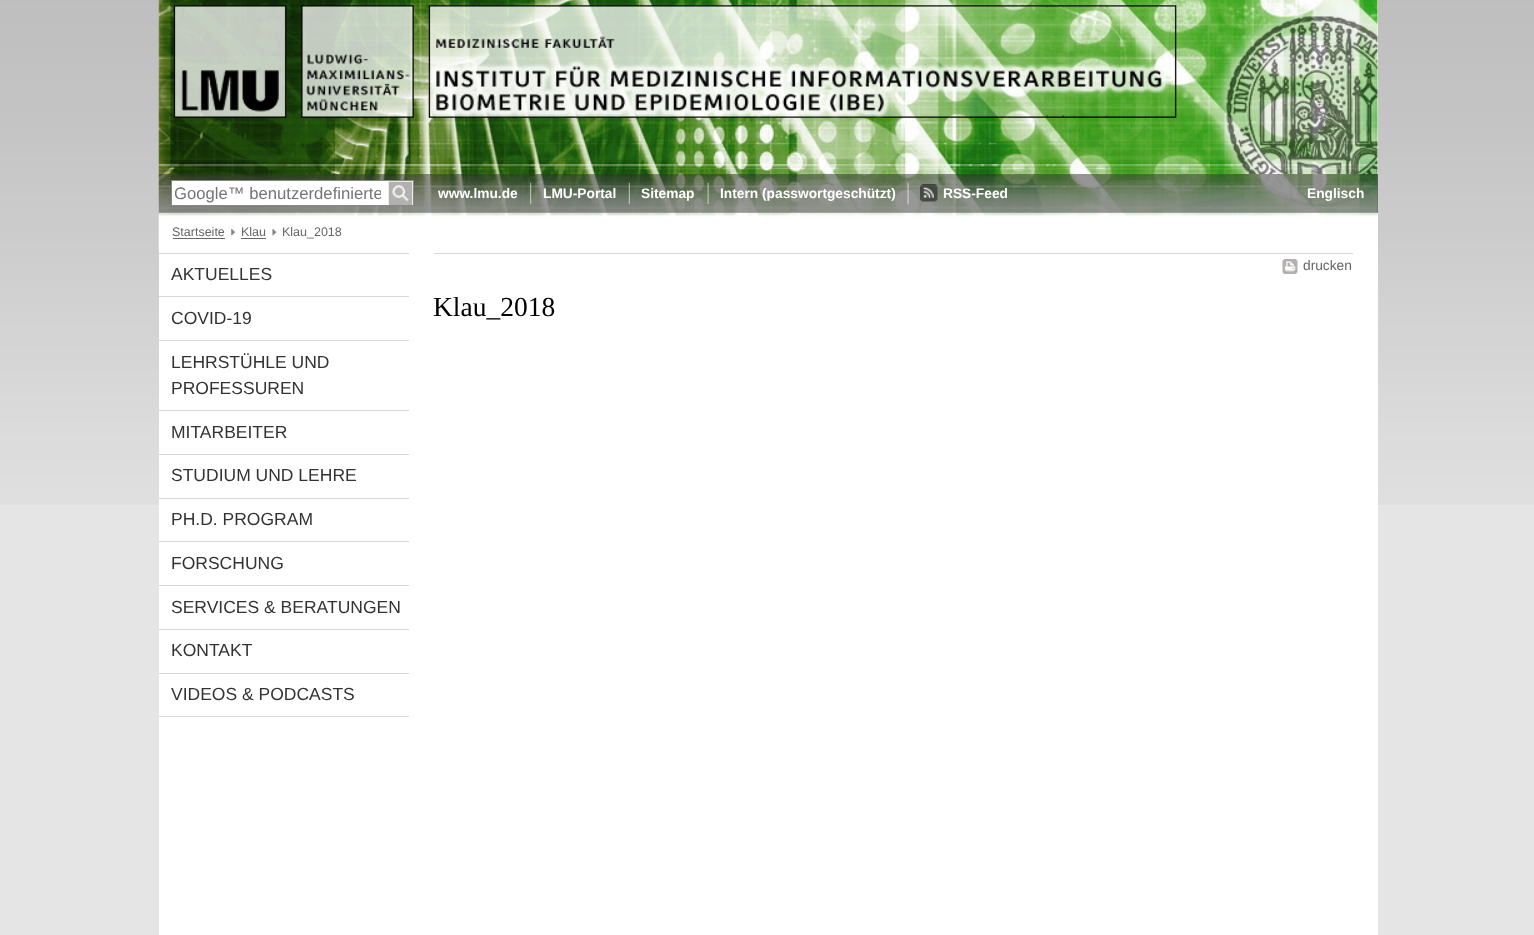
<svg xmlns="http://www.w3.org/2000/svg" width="1534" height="935">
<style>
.a{font:16.7px Liberation Sans;fill:#757575}
.b{font:bold 13.75px Liberation Sans;fill:#fff}
.c{font:12.5px Liberation Sans;fill:#666}
.d{font:17.5px Liberation Sans;fill:#333}
.e{font:13.75px Liberation Sans;fill:#666}
.f{font:27.5px Liberation Serif;fill:#000}
</style>
<defs>
<clipPath id="clip1"><path d="M175 184h206v19H175z"/></clipPath>
</defs>
<rect width="100%" height="100%" fill="#e5e5e5"/>
<image href="1.png" x="0" y="0" width="1534" height="505"/>
<path fill="#fff" d="M159 0h1219v935H159z"/>
<image href="2.png" x="158" y="0" width="1220" height="174"/>
<path fill="#666" d="M159 174h1219v39H159z"/>
<image href="3.png" x="158" y="174" width="1220" height="39"/>
<path fill="#fff" stroke="#888" d="M171.5 180.5h242v25H171.5z"/>
<image href="4.png" x="388" y="181" width="25" height="24"/>
<image href="5.png" x="530" y="182" width="2" height="23"/>
<image href="6.png" x="628" y="182" width="2" height="23"/>
<image href="7.png" x="707" y="182" width="2" height="23"/>
<image href="8.png" x="907" y="182" width="2" height="23"/>
<image href="9.png" x="920" y="184" width="18" height="18"/>
<image href="10.png" x="158" y="212" width="1220" height="40"/>
<path fill="#666" d="M173 238h52v1H173z"/>
<image href="11.png" x="231" y="229" width="5" height="7"/>
<path fill="#666" d="M241 238h25v1H241z"/>
<image href="12.png" x="272" y="229" width="5" height="7"/>
<path fill="#d8d8d8" d="M159 253h250v1H159z"/>
<path fill="#d8d8d8" d="M159 296h250v1H159z"/>
<path fill="#d8d8d8" d="M159 340h250v1H159z"/>
<path fill="#d8d8d8" d="M159 410h250v1H159z"/>
<path fill="#d8d8d8" d="M159 454h250v1H159z"/>
<path fill="#d8d8d8" d="M159 498h250v1H159z"/>
<path fill="#d8d8d8" d="M159 541h250v1H159z"/>
<path fill="#d8d8d8" d="M159 585h250v1H159z"/>
<path fill="#d8d8d8" d="M159 629h250v1H159z"/>
<path fill="#d8d8d8" d="M159 673h250v1H159z"/>
<path fill="#d8d8d8" d="M159 716h250v1H159z"/>
<path fill="#d8d8d8" d="M434 253h919v1H434z"/>
<image href="13.png" x="1282" y="259" width="16" height="15"/>
<g clip-path="url(#clip1)">
<text class="a" x="174" y="199">Google™ benutzerdefinierte</text>
</g>
<text class="b" x="438" y="198">www.lmu.de</text>
<text class="b" x="543" y="198">LMU-Portal</text>
<text class="b" x="641" y="198">Sitemap</text>
<text class="b" x="720" y="198">Intern (passwortgeschützt)</text>
<text class="b" x="943" y="198">RSS-Feed</text>
<text class="b" x="1307" y="198">Englisch</text>
<text class="c" x="172" y="236">Startseite</text>
<text class="c" x="241" y="236">Klau</text>
<text class="c" x="282" y="236">Klau_2018</text>
<text class="d" x="171" y="280">AKTUELLES</text>
<text class="d" x="171" y="324">COVID-19</text>
<text class="d" x="171" y="368">LEHRSTÜHLE UND</text>
<text class="d" x="171" y="394">PROFESSUREN</text>
<text class="d" x="171" y="438">MITARBEITER</text>
<text class="d" x="171" y="481">STUDIUM UND LEHRE</text>
<text class="d" x="171" y="525">PH.D. PROGRAM</text>
<text class="d" x="171" y="569">FORSCHUNG</text>
<text class="d" x="171" y="613">SERVICES &amp; BERATUNGEN</text>
<text class="d" x="171" y="656">KONTAKT</text>
<text class="d" x="171" y="700">VIDEOS &amp; PODCASTS</text>
<text class="e" x="1303" y="270">drucken</text>
<text class="f" x="433" y="316">Klau_2018</text>
</svg>
